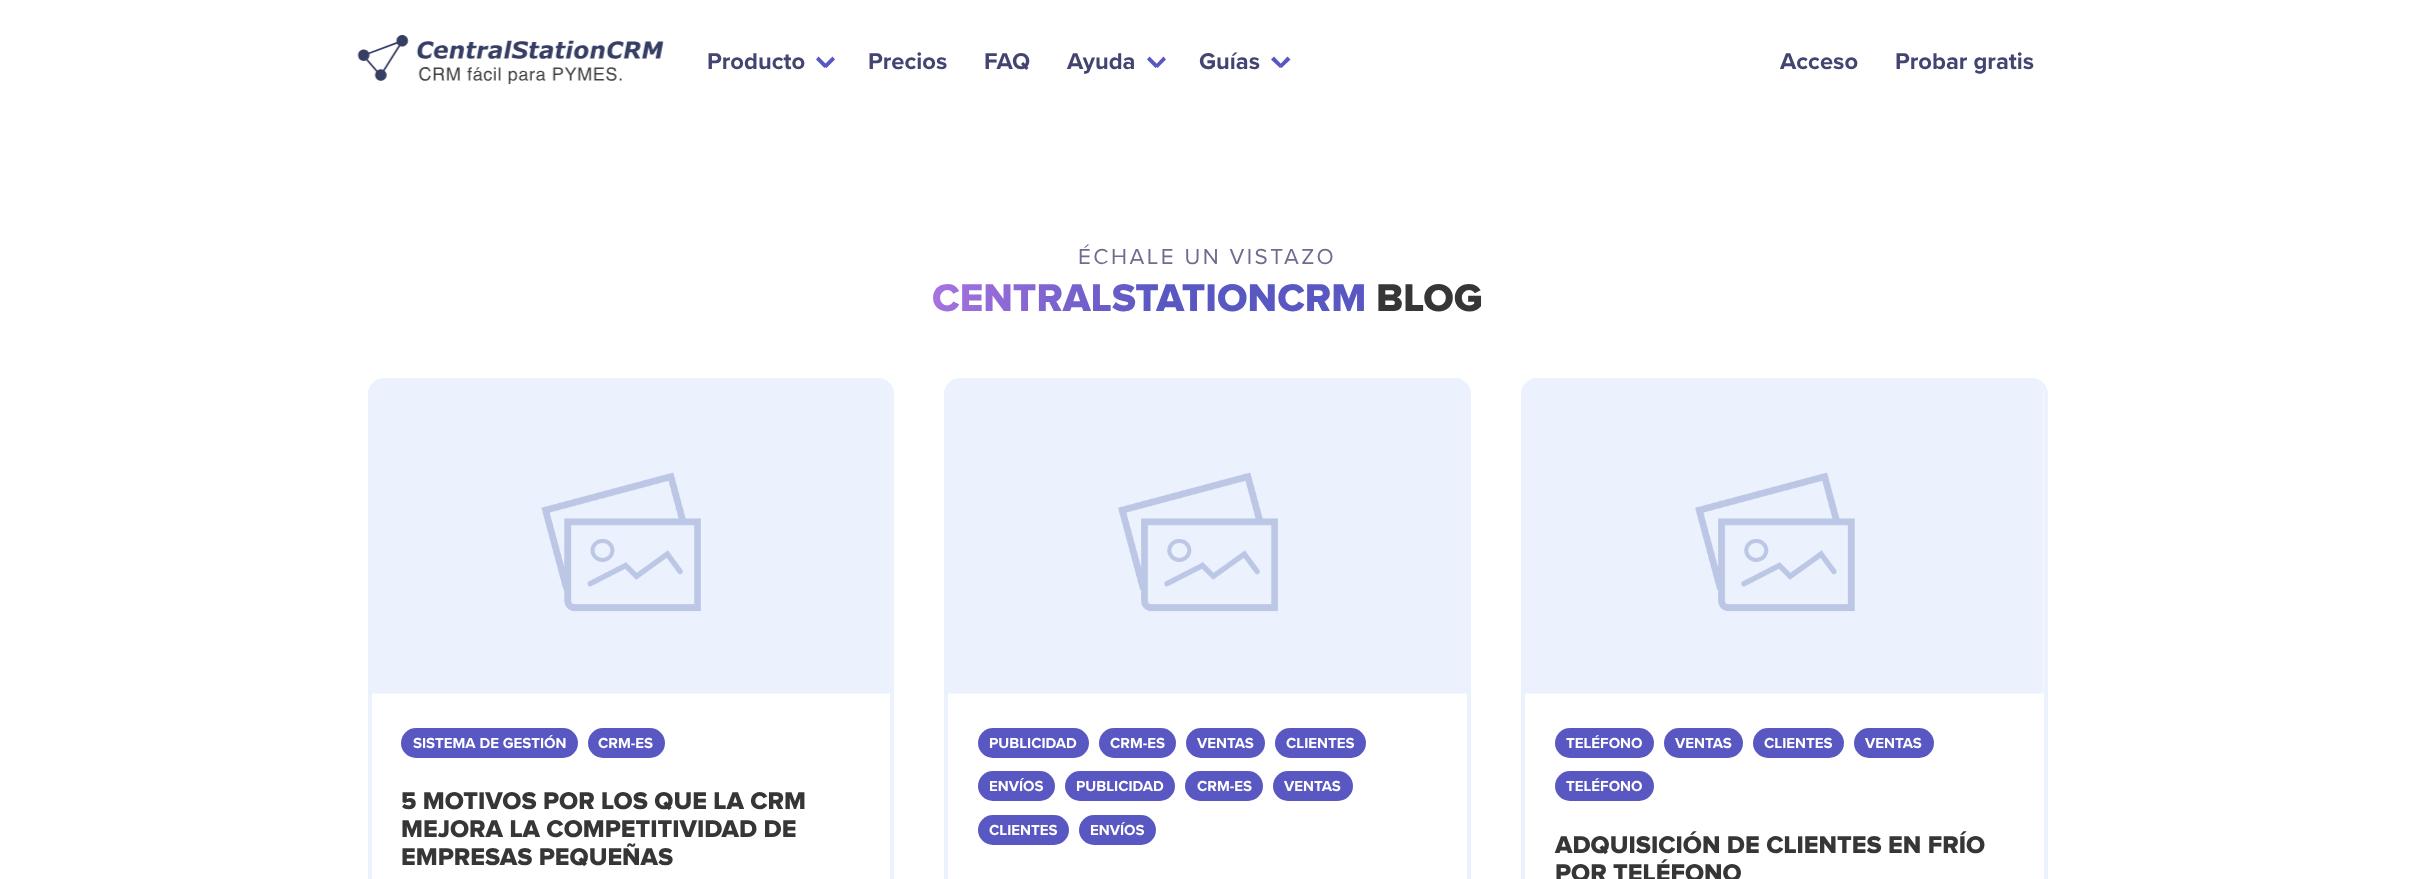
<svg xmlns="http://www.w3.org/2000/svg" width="2415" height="879">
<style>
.a{font:bold 23.75px Proxima Nova;fill:#434472}
.b{font:22.5px Proxima Nova;letter-spacing:2.5px;fill:#6f6c90}
.c{font:800 40px Proxima Nova;fill:url(#g1)}
.d{font:800 40px Proxima Nova;fill:#363636}
.e{font:bold 15px Proxima Nova;fill:#fff}
.f{font:800 25px Proxima Nova;fill:#363636}
</style>
<defs>
<linearGradient id="g1" gradientUnits="userSpaceOnUse" x1="945" y1="233" x2="1353" y2="366"><stop offset="0" stop-color="#aa73e1"/><stop offset="0.52" stop-color="#5957c2"/></linearGradient>
</defs>
<rect width="100%" height="100%" fill="#fff"/>
<image href="1.png" x="357" y="35" width="307" height="50"/>
<path fill="#5957c2" d="M823.5 65.5l9-9l2.5 3l-8.5 8.5z"/>
<path fill="#5957c2" d="M816 59.5l2.5-3l9 9l-3 2.5z"/>
<path fill="#5957c2" d="M1155 65.5l8.5-9l2.5 3l-8.5 8.5z"/>
<path fill="#5957c2" d="M1147 59.5l2.5-3l9 9l-3 2.5z"/>
<path fill="#5957c2" d="M1279 65.5l8.5-9l3 3l-9 8.5z"/>
<path fill="#5957c2" d="M1271 59.5l3-3l8.5 9l-2.5 2.5z"/>
<rect fill="none" stroke="#ecf1fe" stroke-width="4" x="370" y="380" width="522" height="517" rx="14"/>
<image href="2.png" x="372" y="382" width="518" height="312"/>
<rect fill="#5957c2" x="401" y="728" width="177" height="30" rx="15"/>
<rect fill="#5957c2" x="588" y="728" width="77" height="30" rx="15"/>
<rect fill="none" stroke="#ecf1fe" stroke-width="4" x="946" y="380" width="523" height="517" rx="14"/>
<image href="3.png" x="948" y="382" width="519" height="312"/>
<rect fill="#5957c2" x="978" y="728" width="111" height="30" rx="15"/>
<rect fill="#5957c2" x="1099" y="728" width="77" height="30" rx="15"/>
<rect fill="#5957c2" x="1186" y="728" width="79" height="30" rx="15"/>
<rect fill="#5957c2" x="1275" y="728" width="91" height="30" rx="15"/>
<rect fill="#5957c2" x="978" y="771" width="77" height="30" rx="15"/>
<rect fill="#5957c2" x="1065" y="771" width="110" height="30" rx="15"/>
<rect fill="#5957c2" x="1185" y="771" width="78" height="30" rx="15"/>
<rect fill="#5957c2" x="1273" y="771" width="80" height="30" rx="15"/>
<rect fill="#5957c2" x="978" y="815" width="91" height="30" rx="15"/>
<rect fill="#5957c2" x="1079" y="815" width="77" height="30" rx="15"/>
<rect fill="none" stroke="#ecf1fe" stroke-width="4" x="1523" y="380" width="523" height="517" rx="14"/>
<image href="4.png" x="1525" y="382" width="519" height="312"/>
<rect fill="#5957c2" x="1555" y="728" width="99" height="30" rx="15"/>
<rect fill="#5957c2" x="1664" y="728" width="79" height="30" rx="15"/>
<rect fill="#5957c2" x="1753" y="728" width="91" height="30" rx="15"/>
<rect fill="#5957c2" x="1854" y="728" width="80" height="30" rx="15"/>
<rect fill="#5957c2" x="1555" y="771" width="99" height="30" rx="15"/>
<text class="a" x="707" y="69">Producto</text>
<text class="a" x="868" y="69">Precios</text>
<text class="a" x="984" y="69">FAQ</text>
<text class="a" x="1067" y="69">Ayuda</text>
<text class="a" x="1199" y="69">Guías</text>
<text class="a" x="1780" y="69">Acceso</text>
<text class="a" x="1895" y="69">Probar gratis</text>
<text class="b" x="1078" y="264">ÉCHALE UN VISTAZO</text>
<text class="c" x="932" y="311">CENTRALSTATIONCRM</text>
<text class="d" x="1376" y="311">BLOG</text>
<text class="e" x="413" y="748">SISTEMA DE GESTIÓN</text>
<text class="e" x="598" y="748">CRM-ES</text>
<text class="f" x="401" y="809">5 MOTIVOS POR LOS QUE LA CRM</text>
<text class="f" x="401" y="837">MEJORA LA COMPETITIVIDAD DE</text>
<text class="f" x="401" y="865">EMPRESAS PEQUEÑAS</text>
<text class="e" x="989" y="748">PUBLICIDAD</text>
<text class="e" x="1110" y="748">CRM-ES</text>
<text class="e" x="1197" y="748">VENTAS</text>
<text class="e" x="1286" y="748">CLIENTES</text>
<text class="e" x="989" y="791">ENVÍOS</text>
<text class="e" x="1076" y="791">PUBLICIDAD</text>
<text class="e" x="1197" y="791">CRM-ES</text>
<text class="e" x="1284" y="791">VENTAS</text>
<text class="e" x="989" y="835">CLIENTES</text>
<text class="e" x="1090" y="835">ENVÍOS</text>
<text class="e" x="1566" y="748">TELÉFONO</text>
<text class="e" x="1675" y="748">VENTAS</text>
<text class="e" x="1764" y="748">CLIENTES</text>
<text class="e" x="1865" y="748">VENTAS</text>
<text class="e" x="1566" y="791">TELÉFONO</text>
<text class="f" x="1555" y="853">ADQUISICIÓN DE CLIENTES EN FRÍO</text>
<text class="f" x="1555" y="881">POR TELÉFONO</text>
</svg>
